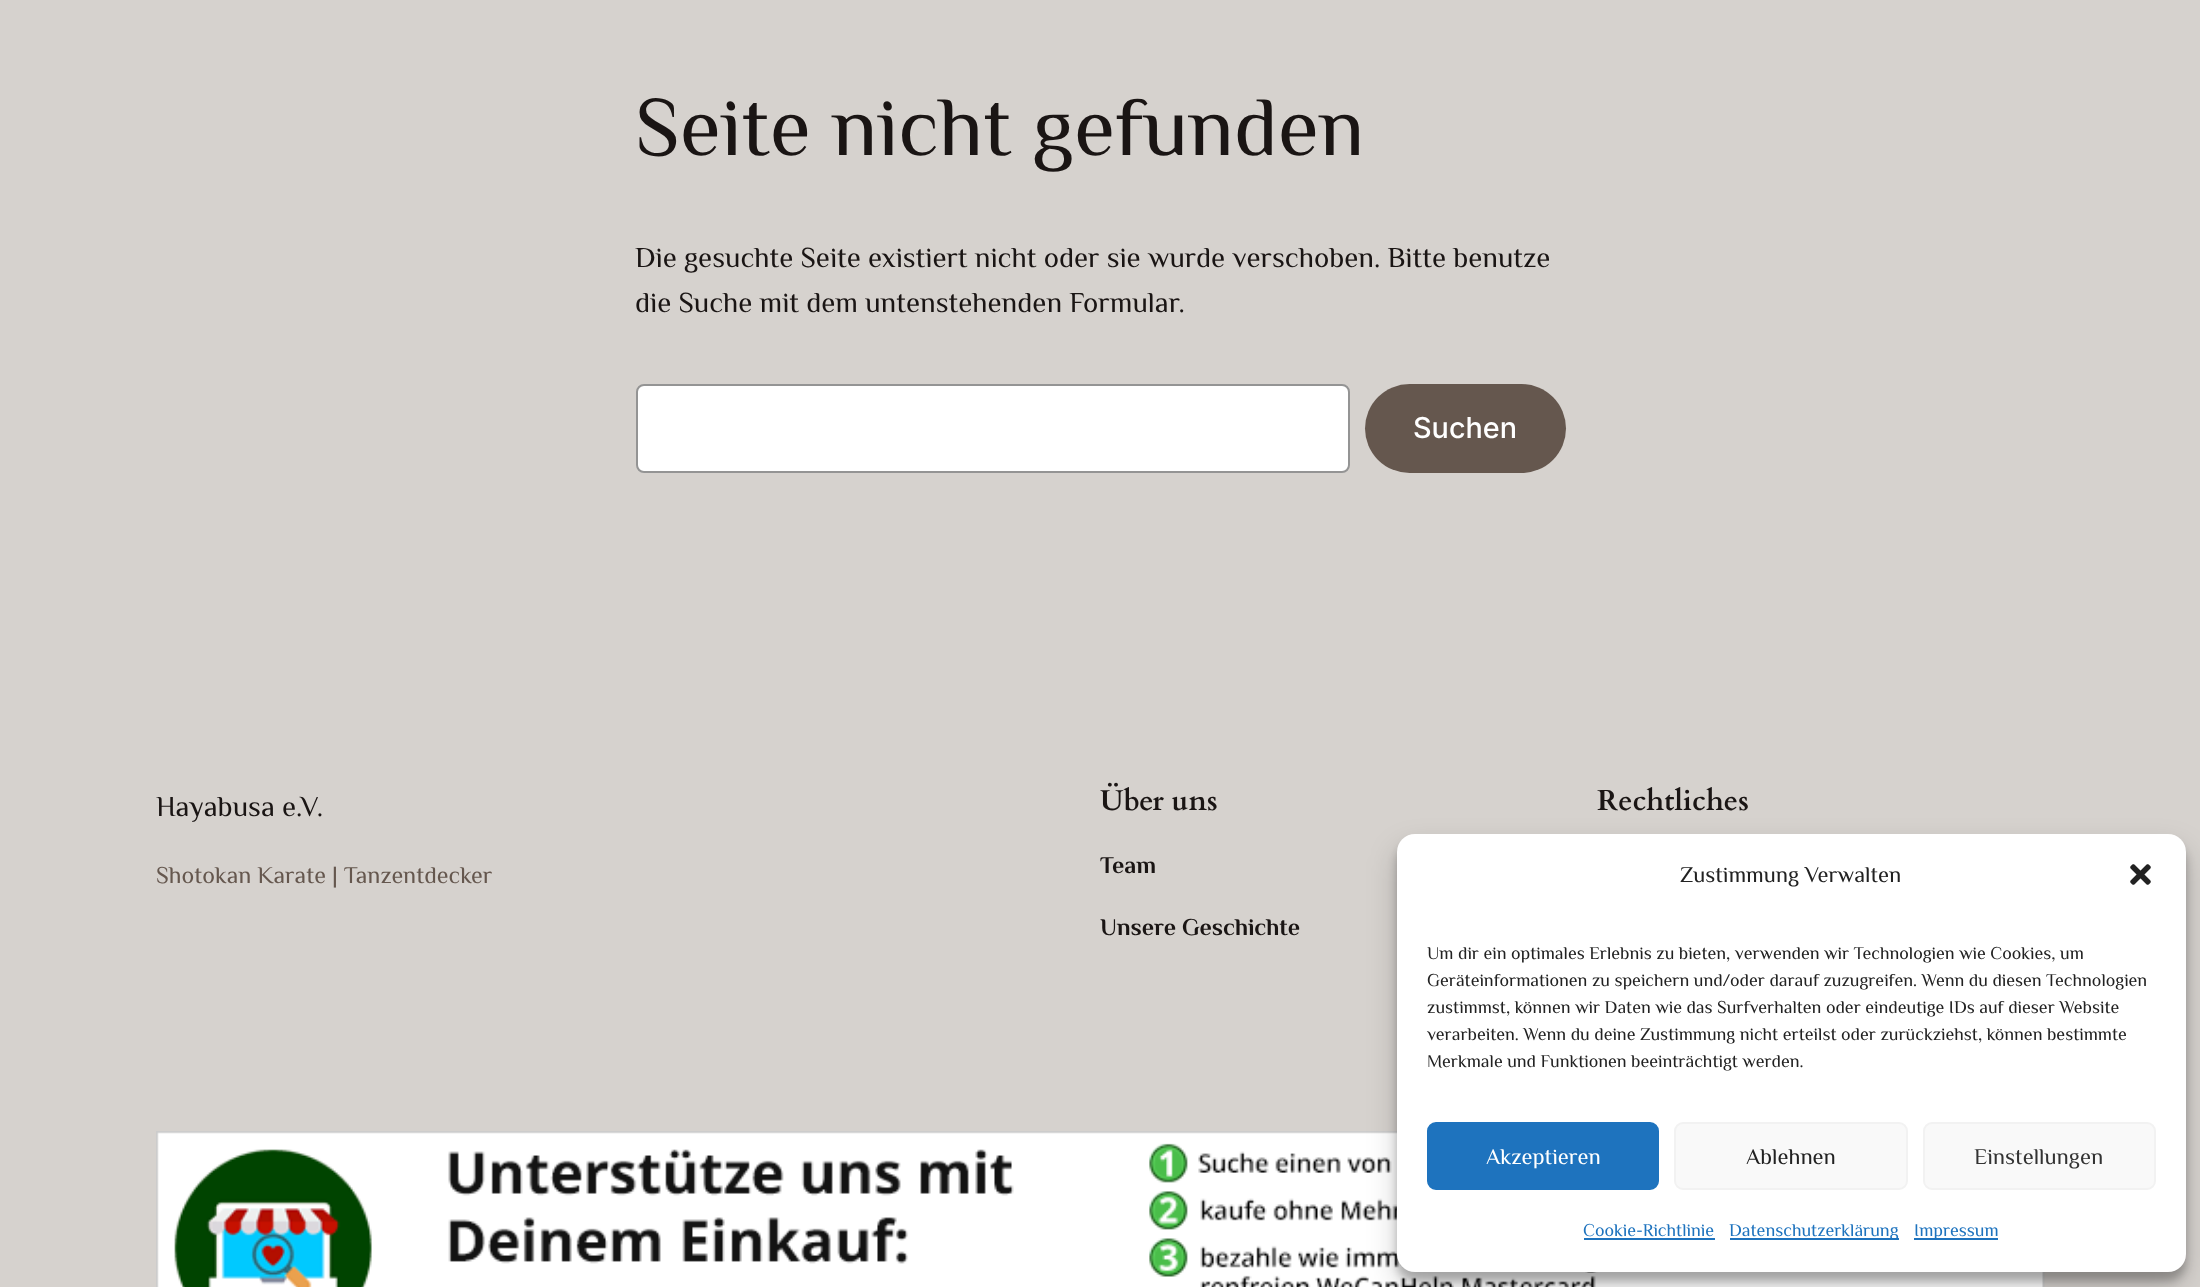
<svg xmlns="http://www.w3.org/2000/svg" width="2200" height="1287">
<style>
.a{font:84px Philosopher;fill:#1a1514}
.b{font:28.8px Philosopher;fill:#1a1514}
.c{font:500 28.8px Inter;fill:#fff}
.d{font:24px Philosopher;fill:#65574e}
.e{font:bold 28.8px Cardo;fill:#1a1514}
.f{font:bold 24px Philosopher;fill:#1a1514}
.g{font:22.5px Philosopher;fill:#222}
.h{font:18px Philosopher;fill:#222}
.i{font:22.5px Philosopher;fill:#fff}
.j{font:22.5px Philosopher;fill:#333}
.k{font:18px Philosopher;fill:#1e73be}
</style>
<rect width="100%" height="100%" fill="#d6d2ce"/>
<rect fill="#fff" stroke="#949494" stroke-width="2" x="637" y="385" width="712" height="87" rx="7"/>
<rect fill="#65574e" x="1365" y="384" width="201" height="89" rx="44.5"/>
<image href="1.png" x="156" y="1131" width="1889" height="156"/>
<rect fill="#0000003b" filter="blur(4.5px)" x="1397" y="843" width="789" height="438" rx="18"/>
<rect fill="#00000030" filter="blur(15px)" x="1397" y="849" width="789" height="438" rx="18"/>
<rect fill="#fff" x="1397" y="834" width="789" height="438" rx="18"/>
<image href="2.png" x="2130" y="864" width="21" height="21"/>
<rect fill="#1e73be" stroke="#1e73be" stroke-width="2" x="1428" y="1123" width="230" height="66" rx="8"/>
<rect fill="#f9f9f9" stroke="#f2f2f2" stroke-width="2" x="1675" y="1123" width="232" height="66" rx="8"/>
<rect fill="#f9f9f9" stroke="#f2f2f2" stroke-width="2" x="1924" y="1123" width="231" height="66" rx="8"/>
<path fill="#1e73be" d="M1584 1238h131v2H1584z"/>
<path fill="#1e73be" d="M1730 1238h169v2H1730z"/>
<path fill="#1e73be" d="M1914 1238h84v2H1914z"/>
<text class="a" x="635" y="155">Seite nicht gefunden</text>
<text class="b" x="635" y="267">Die gesuchte Seite existiert nicht oder sie wurde verschoben. Bitte benutze</text>
<text class="b" x="635" y="312">die Suche mit dem untenstehenden Formular.</text>
<text class="c" x="1413" y="438">Suchen</text>
<text class="b" x="156" y="816">Hayabusa e.V.</text>
<text class="d" x="156" y="883">Shotokan Karate | Tanzentdecker</text>
<text class="e" x="1100" y="810">Über uns</text>
<text class="f" x="1100" y="873">Team</text>
<text class="f" x="1100" y="935">Unsere Geschichte</text>
<text class="e" x="1597" y="810">Rechtliches</text>
<text class="g" x="1680" y="882">Zustimmung Verwalten</text>
<text class="h" x="1427" y="959">Um dir ein optimales Erlebnis zu bieten, verwenden wir Technologien wie Cookies, um</text>
<text class="h" x="1427" y="986">Geräteinformationen zu speichern und/oder darauf zuzugreifen. Wenn du diesen Technologien</text>
<text class="h" x="1427" y="1013">zustimmst, können wir Daten wie das Surfverhalten oder eindeutige IDs auf dieser Website</text>
<text class="h" x="1427" y="1040">verarbeiten. Wenn du deine Zustimmung nicht erteilst oder zurückziehst, können bestimmte</text>
<text class="h" x="1427" y="1067">Merkmale und Funktionen beeinträchtigt werden.</text>
<text class="i" x="1486" y="1164">Akzeptieren</text>
<text class="g" x="1746" y="1164">Ablehnen</text>
<text class="j" x="1974" y="1164">Einstellungen</text>
<text class="k" x="1583" y="1236">Cookie-Richtlinie</text>
<text class="k" x="1729" y="1236">Datenschutzerklärung</text>
<text class="k" x="1914" y="1236">Impressum</text>
</svg>
